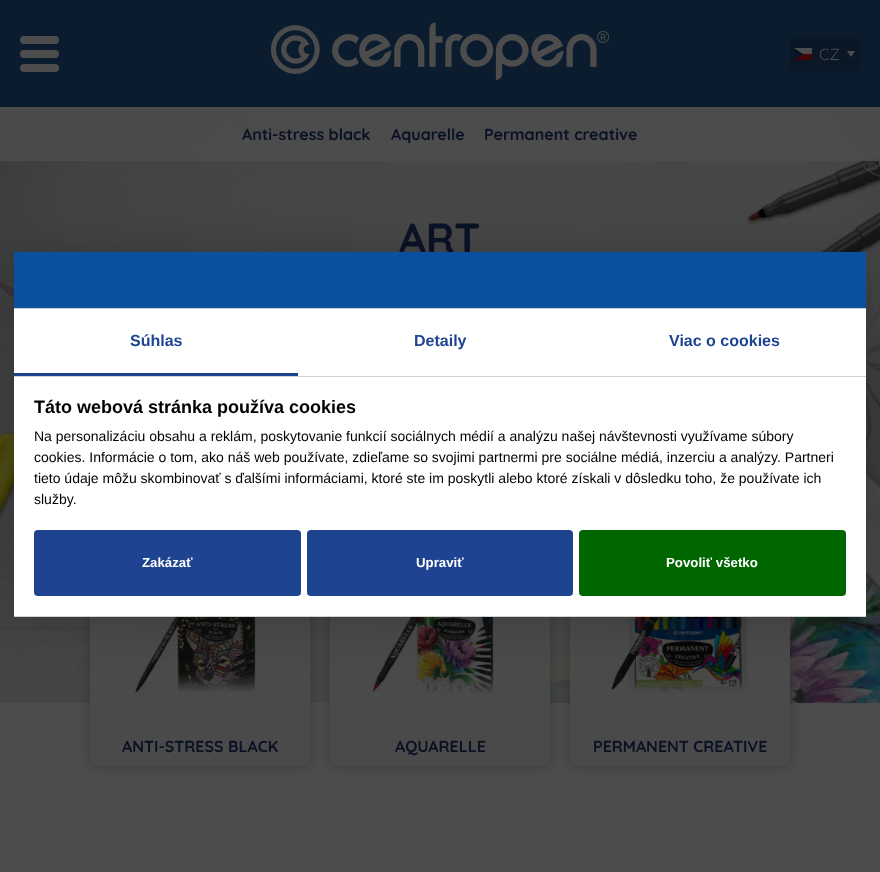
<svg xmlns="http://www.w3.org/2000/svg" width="880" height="872">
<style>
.a{font:16px Quicksand;fill:#4d4d4d}
.b{font:bold 16px Quicksand;fill:#0a1124}
.c{font:bold 42px Quicksand;fill:#0a1124}
.d{font:bold 16px Liberation Sans;fill:#1e4491}
.e{font:bold 18px Liberation Sans;fill:#000}
.f{font:14px Liberation Sans;fill:#000}
.g{font:bold 13.25px Liberation Sans;fill:#fff}
</style>
<rect width="100%" height="100%" fill="#fff"/>
<path fill="#0b1c2e" d="M0 0h880v107H0z"/>
<rect fill="#4d4d4d" x="20" y="36" width="39" height="8" rx="4"/>
<rect fill="#4d4d4d" x="20" y="50" width="39" height="8" rx="4"/>
<rect fill="#4d4d4d" x="20" y="64" width="39" height="8" rx="4"/>
<image href="1.png" x="270" y="22" width="339" height="58"/>
<rect fill="#091726" x="789" y="37" width="71" height="34" rx="5"/>
<image href="2.png" x="794" y="48" width="18" height="12"/>
<image href="3.png" x="847" y="51" width="8" height="6"/>
<image href="4.png" x="0" y="107" width="880" height="765"/>
<path fill="#4d4d4de6" d="M0 107h880v54H0z"/>
<rect fill="#00000026" filter="blur(5px)" x="88" y="584" width="224" height="184" rx="7"/>
<rect fill="#4a4a4a" x="90" y="586" width="220" height="180" rx="5"/>
<image href="5.png" x="135" y="617" width="121" height="76"/>
<rect fill="#00000026" filter="blur(5px)" x="328" y="584" width="224" height="184" rx="7"/>
<rect fill="#4a4a4a" x="330" y="586" width="220" height="180" rx="5"/>
<image href="6.png" x="372" y="617" width="122" height="76"/>
<rect fill="#00000026" filter="blur(5px)" x="568" y="584" width="224" height="184" rx="7"/>
<rect fill="#4a4a4a" x="570" y="586" width="220" height="180" rx="5"/>
<image href="7.png" x="611" y="617" width="139" height="76"/>
<path fill="#00000033" filter="blur(20px)" d="M14 252h852v365H14z"/>
<path fill="#fff" d="M14 309h852v307H14z"/>
<path fill="#d2d2d2" d="M14 308h852v1H14z"/>
<path fill="#d2d2d2" d="M14 376h852v1H14z"/>
<path fill="#1e4491" d="M14 373h284v3H14z"/>
<path fill="#d2d2d2" d="M14 616h852v1H14z"/>
<rect fill="#1e4491" x="34" y="530" width="267" height="66" rx="4"/>
<rect fill="#1e4491" x="307" y="530" width="266" height="66" rx="4"/>
<rect fill="#060" x="579" y="530" width="267" height="66" rx="4"/>
<text class="a" x="819" y="60">CZ</text>
<text class="b" x="242" y="140">Anti-stress black</text>
<text class="b" x="391" y="140">Aquarelle</text>
<text class="b" x="484" y="140">Permanent creative</text>
<text class="c" x="399" y="253">ART</text>
<text class="b" x="122" y="752">ANTI-STRESS BLACK</text>
<text class="b" x="395" y="752">AQUARELLE</text>
<text class="b" x="593" y="752">PERMANENT CREATIVE</text>
<path fill="#0a50a1" d="M14 252h852v56H14z"/>
<text class="d" x="130" y="346">Súhlas</text>
<text class="d" x="414" y="346">Detaily</text>
<text class="d" x="669" y="346">Viac o cookies</text>
<text class="e" x="34" y="413">Táto webová stránka používa cookies</text>
<text class="f" x="34" y="441">Na personalizáciu obsahu a reklám, poskytovanie funkcií sociálnych médií a analýzu našej návštevnosti využívame súbory</text>
<text class="f" x="34" y="462">cookies. Informácie o tom, ako náš web používate, zdieľame so svojimi partnermi pre sociálne médiá, inzerciu a analýzy. Partneri</text>
<text class="f" x="34" y="483">tieto údaje môžu skombinovať s ďalšími informáciami, ktoré ste im poskytli alebo ktoré získali v dôsledku toho, že používate ich</text>
<text class="f" x="34" y="504">služby.</text>
<text class="g" x="142" y="567">Zakázať</text>
<text class="g" x="416" y="567">Upraviť</text>
<text class="g" x="666" y="567">Povoliť všetko</text>
</svg>
